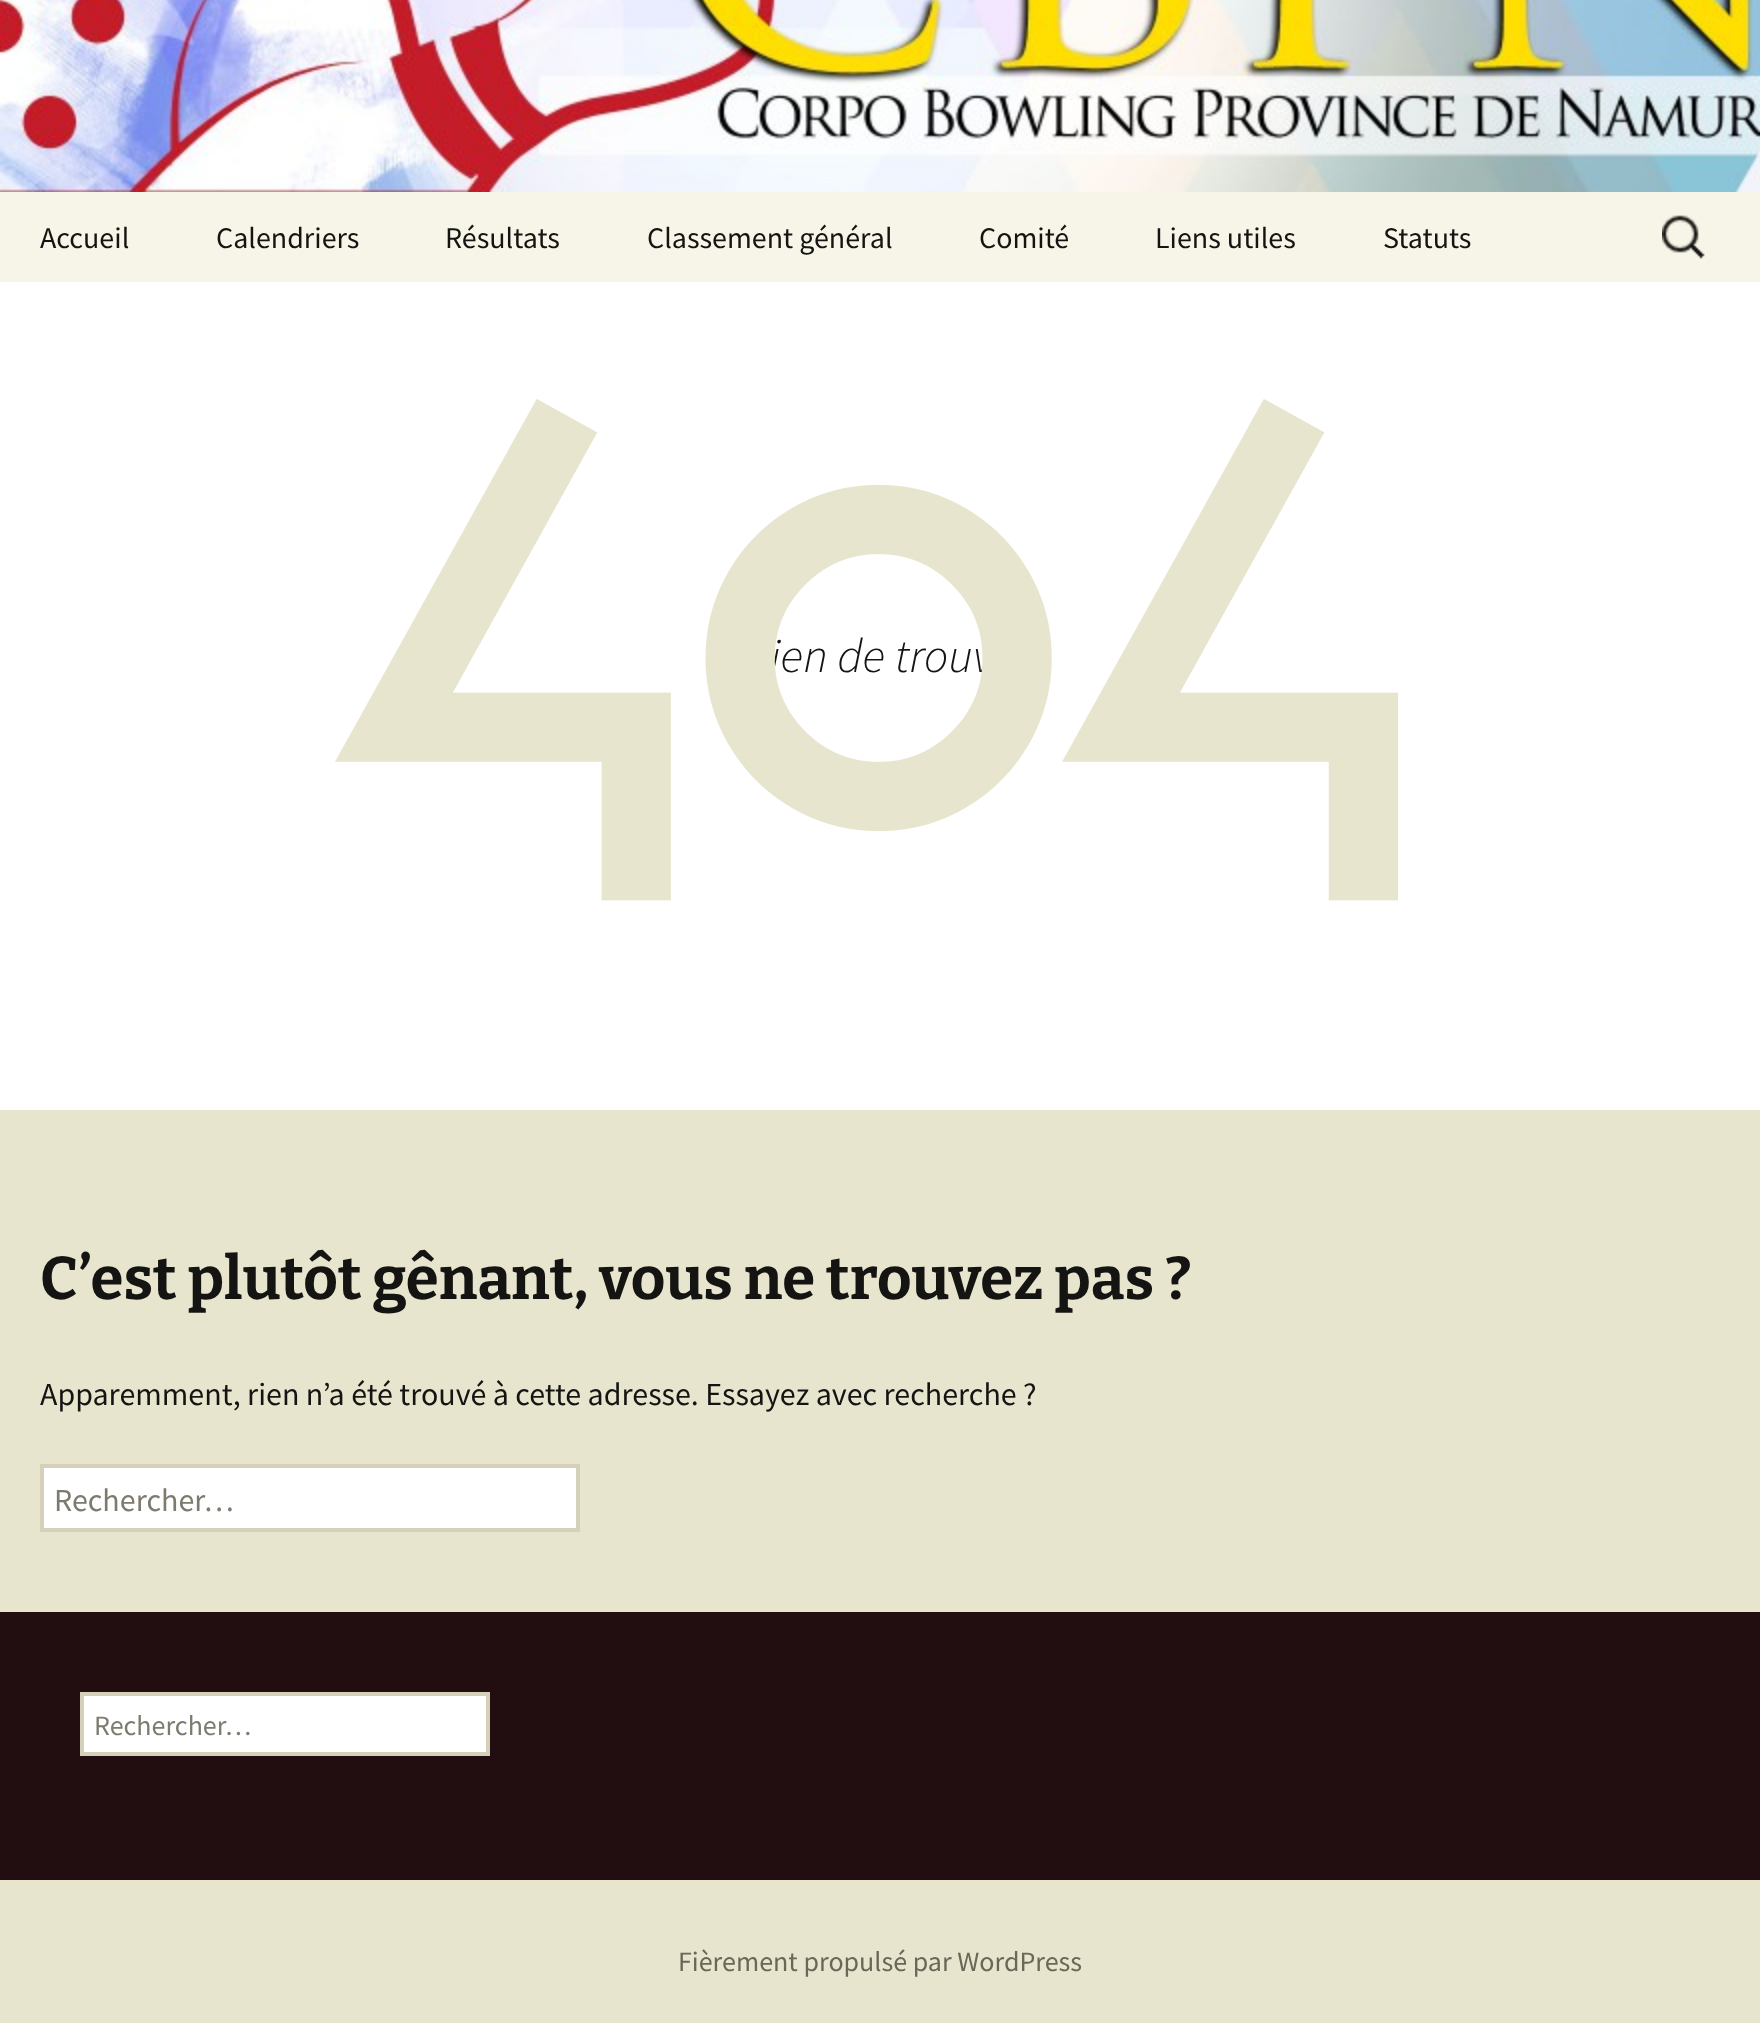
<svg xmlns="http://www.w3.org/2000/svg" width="1760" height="2023">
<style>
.a{font:30px Source Sans Pro;fill:#141412}
.b{font:italic 300 48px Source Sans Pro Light;fill:#141412}
.c{font:bold 60px Bitter;fill:#141412}
.d{font:32px Source Sans Pro;fill:#141412}
.e{font:32px Source Sans Pro;fill:#7d7b6d}
.f{font:28px Source Sans Pro;fill:#7d7b6d}
.g{font:28px Source Sans Pro;fill:#686758}
</style>
<rect width="100%" height="100%" fill="#fff"/>
<image href="1.png" x="0" y="0" width="1760" height="192"/>
<path fill="#f7f5e7" d="M0 192h1760v90H0z"/>
<image href="2.png" x="1662" y="215" width="43" height="44"/>
<path fill="#e8e5ce" d="M0 1110h1760v502H0z"/>
<path fill="#fff" stroke="#d4d0ba" stroke-width="4" d="M42 1466h536v64H42z"/>
<path fill="#e8e5ce" d="M0 1880h1760v143H0z"/>
<path fill="#220e10" d="M0 1612h1760v268H0z"/>
<path fill="#fff" stroke="#d4d0ba" stroke-width="4" d="M82 1694h406v60H82z"/>
<text class="a" x="40" y="248">Accueil</text>
<text class="a" x="216" y="248">Calendriers</text>
<text class="a" x="445" y="248">Résultats</text>
<text class="a" x="647" y="248">Classement général</text>
<text class="a" x="979" y="248">Comité</text>
<text class="a" x="1155" y="248">Liens utiles</text>
<text class="a" x="1383" y="248">Statuts</text>
<text class="b" x="770" y="672">ien de trouv</text>
<image href="3.png" x="335" y="399" width="1063" height="502"/>
<text class="c" x="40" y="1299">C’est plutôt gênant, vous ne trouvez pas ?</text>
<text class="d" x="40" y="1405">Apparemment, rien n’a été trouvé à cette adresse. Essayez avec recherche ?</text>
<text class="e" x="54" y="1511">Rechercher…</text>
<text class="f" x="94" y="1735">Rechercher…</text>
<text class="g" x="678" y="1971">Fièrement propulsé par WordPress</text>
</svg>
